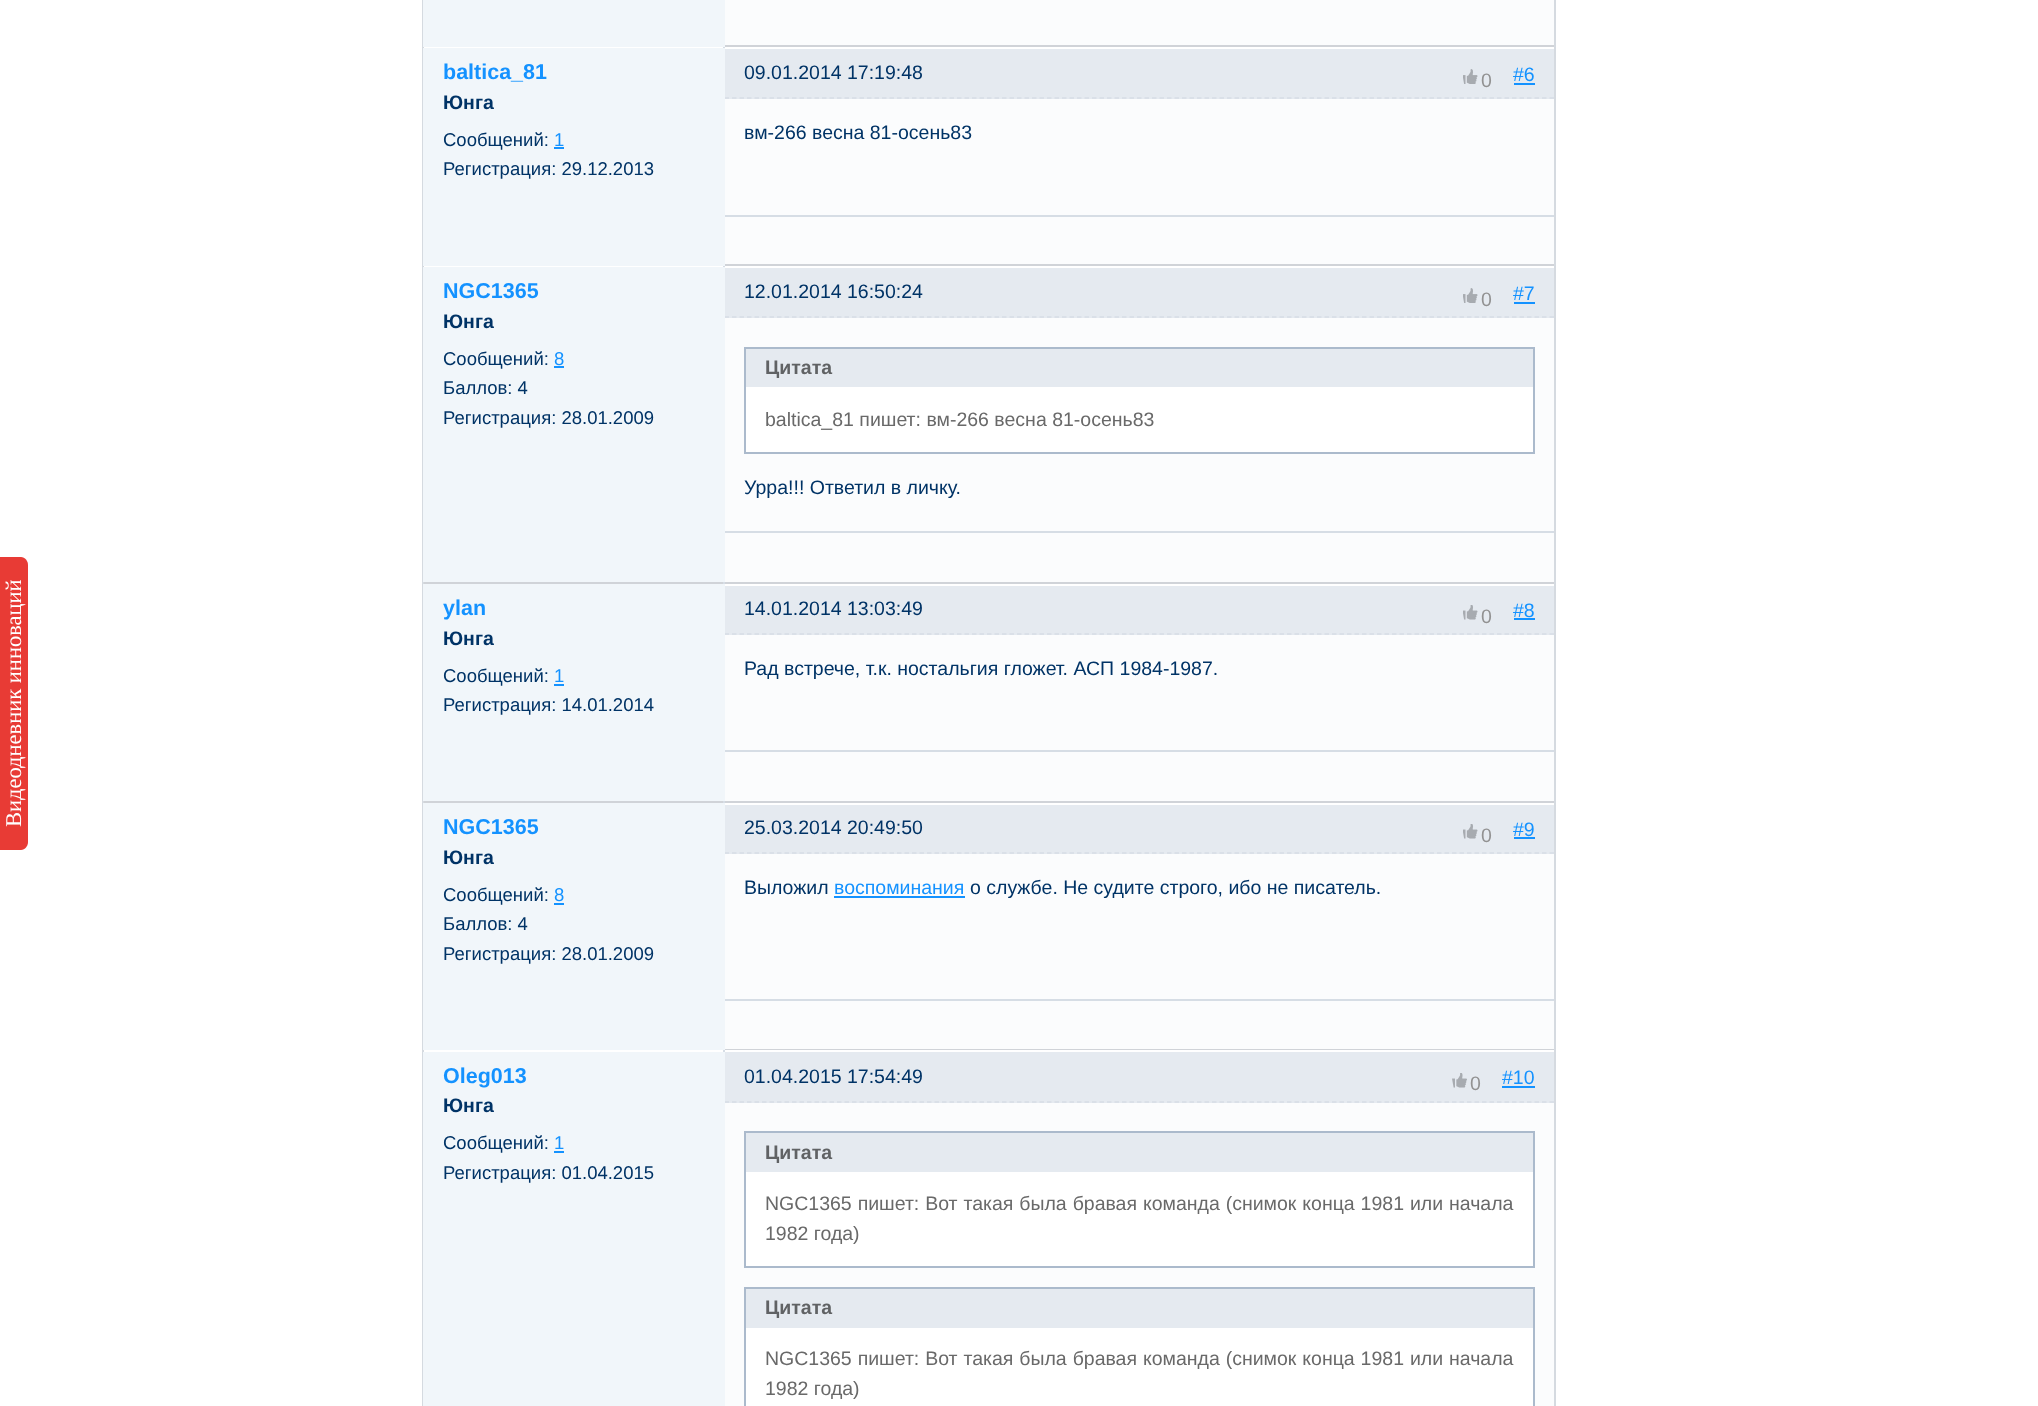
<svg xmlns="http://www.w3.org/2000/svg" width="2038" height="1406">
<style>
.a{font:22.5px Liberation Serif;fill:#fff}
.b{font:bold 21.5px Liberation Sans;fill:#1492ff}
.c{font:bold 19.5px Liberation Sans;fill:#036}
.d{font:18.5px Liberation Sans;fill:#036}
.e{font:18.5px Liberation Sans;fill:#1492ff}
.f{font:19.5px Liberation Sans;fill:#036}
.g{font:19.5px Liberation Sans;fill:#929292}
.h{font:19.5px Liberation Sans;fill:#1492ff}
.i{font:bold 19.5px Liberation Sans;fill:#606264}
.j{font:19.5px Liberation Sans;fill:#696969}
</style>
<rect width="100%" height="100%" fill="#fff"/>
<path fill="#e83b35" d="M0 850v-293h21c4 0 7 4 7 8v277c0 4-3 8-7 8z"/>
<path fill="#d0d3d8" d="M725 45h831v2H725z"/>
<path fill="#d5dae0" d="M422 0h1v47H422z"/>
<path fill="#f1f6fa" d="M423 0h302v47H423z"/>
<path fill="#fbfcfd" d="M725 0h829v45H725z"/>
<path fill="#d5dae0" d="M1554 0h2v47H1554z"/>
<path fill="#d0d3d8" d="M725 264h831v2H725z"/>
<path fill="#d5dae0" d="M422 215h1v51H422z"/>
<path fill="#fbfcfd" d="M725 217h829v47H725z"/>
<path fill="#d6dde5" d="M723 215h833v2H723z"/>
<path fill="#d5dae0" d="M1554 47h2v219H1554z"/>
<path fill="#d6dde5" d="M723 47h2v1H723z"/>
<path fill="#d5dae0" d="M422 47h2v169H422z"/>
<path fill="#e5eaf0" d="M725 49h829v50H725z"/>
<path fill="none" stroke="#d6dde5" stroke-width="1.5" stroke-dasharray="4.5 3" d="M724.5 98h829.5"/>
<path fill="#f1f6fa" d="M423 48h302v218H423z"/>
<path fill="#1492ff" d="M554 147h10v2H554z"/>
<path fill="#fbfcfd" d="M725 99h829v116H725z"/>
<image href="1.png" x="1463" y="69" width="15" height="15"/>
<path fill="#1492ff" d="M1514 83h21v2H1514z"/>
<path fill="#d0d3d8" d="M422 582h1134v2H422z"/>
<path fill="#d6dde5" d="M723 582h2v2H723z"/>
<path fill="#d5dae0" d="M422 266h2v318H422z"/>
<path fill="#fbfcfd" d="M725 533h829v49H725z"/>
<path fill="#d6dde5" d="M723 531h833v2H723z"/>
<path fill="#d5dae0" d="M1554 266h2v318H1554z"/>
<path fill="#d6dde5" d="M723 266h2v1H723z"/>
<path fill="#e5eaf0" d="M725 268h829v50H725z"/>
<path fill="none" stroke="#d6dde5" stroke-width="1.5" stroke-dasharray="4.5 3" d="M724.5 317h829.5"/>
<path fill="#f1f6fa" d="M423 267h302v315H423z"/>
<path fill="#1492ff" d="M554 366h10v2H554z"/>
<path fill="#fbfcfd" d="M725 318h829v213H725z"/>
<image href="1.png" x="1463" y="288" width="15" height="15"/>
<path fill="#1492ff" d="M1514 302h21v2H1514z"/>
<path fill="#abbacc" d="M744 347h791v2H744z"/>
<path fill="#abbacc" d="M1533 347h2v106H1533z"/>
<path fill="#abbacc" d="M744 452h791v2H744z"/>
<path fill="#abbacc" d="M744 347h2v106H744z"/>
<path fill="#e5eaf0" d="M746 349h787v38H746z"/>
<path fill="#fff" d="M746 387h787v65H746z"/>
<path fill="#d0d3d8" d="M422 801h1134v2H422z"/>
<path fill="#d6dde5" d="M723 801h2v2H723z"/>
<path fill="#d5dae0" d="M422 750h2v53H422z"/>
<path fill="#fbfcfd" d="M725 752h829v49H725z"/>
<path fill="#d6dde5" d="M723 750h833v2H723z"/>
<path fill="#d5dae0" d="M1554 584h2v219H1554z"/>
<path fill="#d5dae0" d="M422 584h1v168H422z"/>
<path fill="#e5eaf0" d="M725 586h829v49H725z"/>
<path fill="none" stroke="#d6dde5" stroke-width="1.5" stroke-dasharray="4.5 3" d="M724.5 634h829.5"/>
<path fill="#f1f6fa" d="M423 584h302v217H423z"/>
<path fill="#1492ff" d="M554 684h10v2H554z"/>
<path fill="#fbfcfd" d="M725 635h829v115H725z"/>
<image href="2.png" x="1463" y="605" width="15" height="15"/>
<path fill="#1492ff" d="M1514 618h21v2H1514z"/>
<path fill="#d0d3d8" d="M725 1049h831v1H725z"/>
<path fill="#d5dae0" d="M422 803h1v247H422z"/>
<path fill="#fbfcfd" d="M725 1001h829v48H725z"/>
<path fill="#d6dde5" d="M723 999h833v2H723z"/>
<path fill="#d5dae0" d="M1554 803h2v603H1554z"/>
<path fill="#e5eaf0" d="M725 805h829v49H725z"/>
<path fill="none" stroke="#d6dde5" stroke-width="1.5" stroke-dasharray="4.5 3" d="M724.5 853h829.5"/>
<path fill="#f1f6fa" d="M423 803h302v247H423z"/>
<path fill="#1492ff" d="M554 903h10v2H554z"/>
<path fill="#fbfcfd" d="M725 854h829v145H725z"/>
<image href="2.png" x="1463" y="824" width="15" height="15"/>
<path fill="#1492ff" d="M1514 837h21v2H1514z"/>
<path fill="#1492ff" d="M834 896h131v2H834z"/>
<path fill="#d6dde5" d="M723 1050h2v2H723z"/>
<path fill="#d5dae0" d="M422 1050h2v356H422z"/>
<path fill="#e5eaf0" d="M725 1052h829v51H725z"/>
<path fill="none" stroke="#d6dde5" stroke-width="1.5" stroke-dasharray="4.5 3" d="M724.5 1102h829.5"/>
<path fill="#f1f6fa" d="M423 1052h302v354H423z"/>
<path fill="#1492ff" d="M554 1151h10v2H554z"/>
<path fill="#fbfcfd" d="M725 1103h829v303H725z"/>
<image href="3.png" x="1452" y="1073" width="15" height="15"/>
<path fill="#1492ff" d="M1502 1086h33v2H1502z"/>
<path fill="#abbacc" d="M744 1131h791v2H744z"/>
<path fill="#abbacc" d="M1533 1131h2v137H1533z"/>
<path fill="#abbacc" d="M744 1266h791v2H744z"/>
<path fill="#abbacc" d="M744 1131h2v137H744z"/>
<path fill="#e5eaf0" d="M746 1133h787v39H746z"/>
<path fill="#fff" d="M746 1172h787v94H746z"/>
<path fill="#abbacc" d="M744 1287h791v2H744z"/>
<path fill="#abbacc" d="M1533 1287h2v119H1533z"/>
<path fill="#abbacc" d="M744 1287h2v119H744z"/>
<path fill="#e5eaf0" d="M746 1289h787v39H746z"/>
<path fill="#fff" d="M746 1328h787v78H746z"/>
<text class="a" x="21" y="827" transform="rotate(-90 21 827)">Видеодневник инноваций</text>
<text class="b" x="443" y="79">baltica_81</text>
<text class="c" x="443" y="109">Юнга</text>
<text class="d" x="443" y="146">Сообщений:</text>
<text class="e" x="554" y="146">1</text>
<text class="d" x="443" y="175">Регистрация: 29.12.2013</text>
<text class="f" x="744" y="79">09.01.2014 17:19:48</text>
<text class="g" x="1481" y="87">0</text>
<text class="h" x="1513" y="81">#6</text>
<text class="f" x="744" y="139">вм-266 весна 81-осень83</text>
<text class="b" x="443" y="298">NGC1365</text>
<text class="c" x="443" y="328">Юнга</text>
<text class="d" x="443" y="365">Сообщений:</text>
<text class="e" x="554" y="365">8</text>
<text class="d" x="443" y="394">Баллов: 4</text>
<text class="d" x="443" y="424">Регистрация: 28.01.2009</text>
<text class="f" x="744" y="298">12.01.2014 16:50:24</text>
<text class="g" x="1481" y="306">0</text>
<text class="h" x="1513" y="300">#7</text>
<text class="i" x="765" y="374">Цитата</text>
<text class="j" x="765" y="426">baltica_81 пишет: вм-266 весна 81-осень83</text>
<text class="f" x="744" y="494">Урра!!! Ответил в личку.</text>
<text class="b" x="443" y="615">ylan</text>
<text class="c" x="443" y="645">Юнга</text>
<text class="d" x="443" y="682">Сообщений:</text>
<text class="e" x="554" y="682">1</text>
<text class="d" x="443" y="711">Регистрация: 14.01.2014</text>
<text class="f" x="744" y="615">14.01.2014 13:03:49</text>
<text class="g" x="1481" y="623">0</text>
<text class="h" x="1513" y="617">#8</text>
<text class="f" x="744" y="675">Рад встрече, т.к. ностальгия гложет. АСП 1984-1987.</text>
<text class="b" x="443" y="834">NGC1365</text>
<text class="c" x="443" y="864">Юнга</text>
<text class="d" x="443" y="901">Сообщений:</text>
<text class="e" x="554" y="901">8</text>
<text class="d" x="443" y="930">Баллов: 4</text>
<text class="d" x="443" y="960">Регистрация: 28.01.2009</text>
<text class="f" x="744" y="834">25.03.2014 20:49:50</text>
<text class="g" x="1481" y="842">0</text>
<text class="h" x="1513" y="836">#9</text>
<text class="f" x="744" y="894">Выложил</text>
<text class="h" x="834" y="894">воспоминания</text>
<text class="f" x="970" y="894">о службе. Не судите строго, ибо не писатель.</text>
<text class="b" x="443" y="1083">Oleg013</text>
<text class="c" x="443" y="1112">Юнга</text>
<text class="d" x="443" y="1149">Сообщений:</text>
<text class="e" x="554" y="1149">1</text>
<text class="d" x="443" y="1179">Регистрация: 01.04.2015</text>
<text class="f" x="744" y="1083">01.04.2015 17:54:49</text>
<text class="g" x="1470" y="1090">0</text>
<text class="h" x="1502" y="1084">#10</text>
<text class="i" x="765" y="1159">Цитата</text>
<text class="j" x="765" y="1210" word-spacing="0.5">NGC1365 пишет: Вот такая была бравая команда (снимок конца 1981 или начала</text>
<text class="j" x="765" y="1240">1982 года)</text>
<text class="i" x="765" y="1314">Цитата</text>
<text class="j" x="765" y="1365" word-spacing="0.5">NGC1365 пишет: Вот такая была бравая команда (снимок конца 1981 или начала</text>
<text class="j" x="765" y="1395">1982 года)</text>
</svg>
